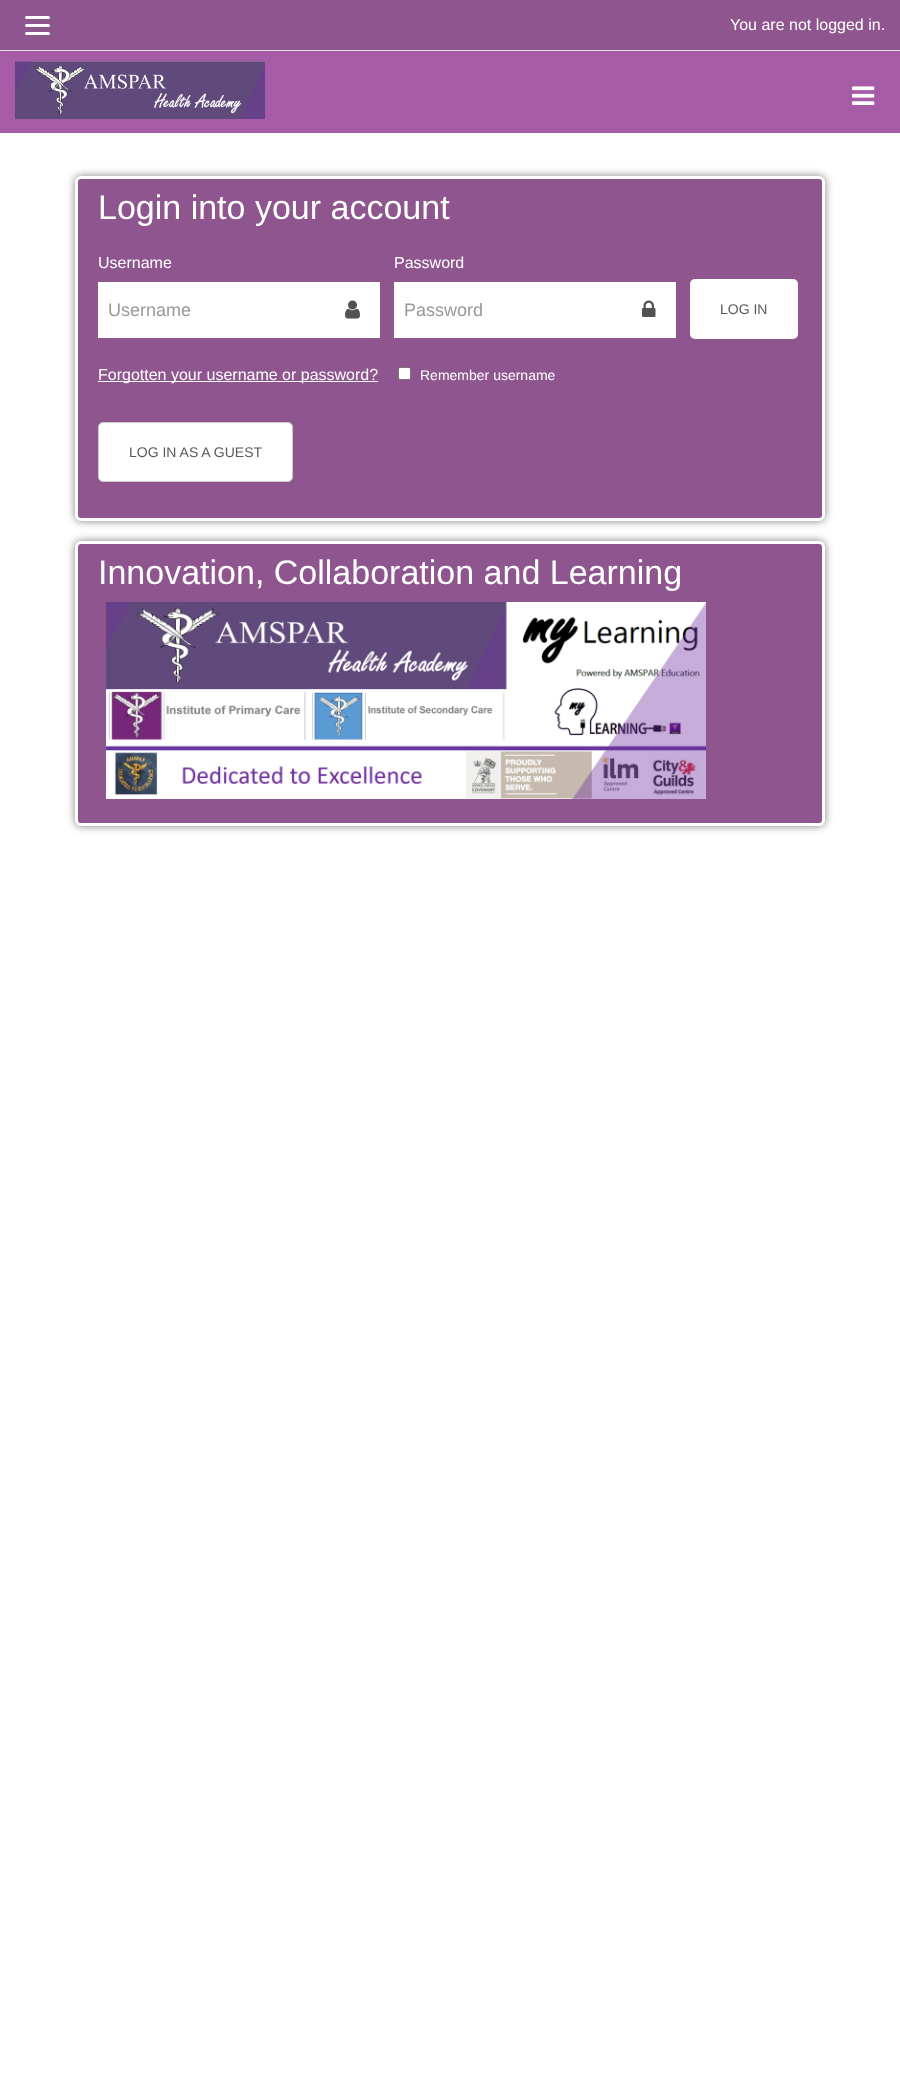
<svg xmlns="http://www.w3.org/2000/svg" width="900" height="2098">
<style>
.a{font:16px Liberation Sans;fill:#fff}
.b{font:34px Liberation Sans;fill:#fff}
.c{font:18px Liberation Sans;fill:#999}
.d{font:14px Liberation Sans;fill:#585858}
.e{font:14px Liberation Sans;fill:#fff}
</style>
<rect width="100%" height="100%" fill="#fff"/>
<path fill="#e5e5e5" d="M0 50h900v1H0z"/>
<path fill="#8e558e" d="M0 0h900v50H0z"/>
<rect fill="#fff" x="25" y="16" width="25" height="3" rx="1.5"/>
<rect fill="#fff" x="25" y="24" width="25" height="3" rx="1.5"/>
<rect fill="#fff" x="25" y="32" width="25" height="3" rx="1.5"/>
<path fill="#a55ba5" d="M0 51h900v82H0z"/>
<image href="1.png" x="15" y="61" width="250" height="58"/>
<image href="2.png" x="852" y="86" width="23" height="19"/>
<rect fill="#00000080" filter="blur(4.5px)" x="75" y="176" width="750" height="345" rx="6"/>
<rect fill="#8e558e" stroke="#fff" stroke-width="3" x="76.5" y="177.5" width="747" height="342" rx="4.5"/>
<path fill="#fff" d="M98 282h282v56H98z"/>
<image href="3.png" x="345" y="300" width="15" height="19"/>
<path fill="#fff" d="M394 282h282v56H394z"/>
<image href="4.png" x="642" y="300" width="14" height="17"/>
<rect fill="#fff" x="690" y="279" width="108" height="60" rx="5"/>
<path fill="#fff" d="M98 381h280v1H98z"/>
<rect fill="#fff" stroke="#767676" x="398.5" y="367.5" width="12" height="12" rx="1.5"/>
<rect fill="#fff" stroke="#ccc" x="98.5" y="422.5" width="194" height="59" rx="4.5"/>
<rect fill="#00000080" filter="blur(4.5px)" x="75" y="541" width="750" height="285" rx="6"/>
<rect fill="#8e558e" stroke="#fff" stroke-width="3" x="76.5" y="542.5" width="747" height="282" rx="4.5"/>
<image href="5.png" x="106" y="602" width="600" height="197"/>
<text class="a" x="730" y="30">You are not logged in.</text>
<text class="b" x="98" y="219">Login into your account</text>
<text class="a" x="98" y="268">Username</text>
<text class="c" x="108" y="316">Username</text>
<text class="a" x="394" y="268">Password</text>
<text class="c" x="404" y="316">Password</text>
<text class="d" x="720" y="314">LOG IN</text>
<text class="a" x="98" y="380">Forgotten your username or password?</text>
<text class="e" x="420" y="380">Remember username</text>
<text class="d" x="129" y="457">LOG IN AS A GUEST</text>
<text class="b" x="98" y="584">Innovation, Collaboration and Learning</text>
</svg>
